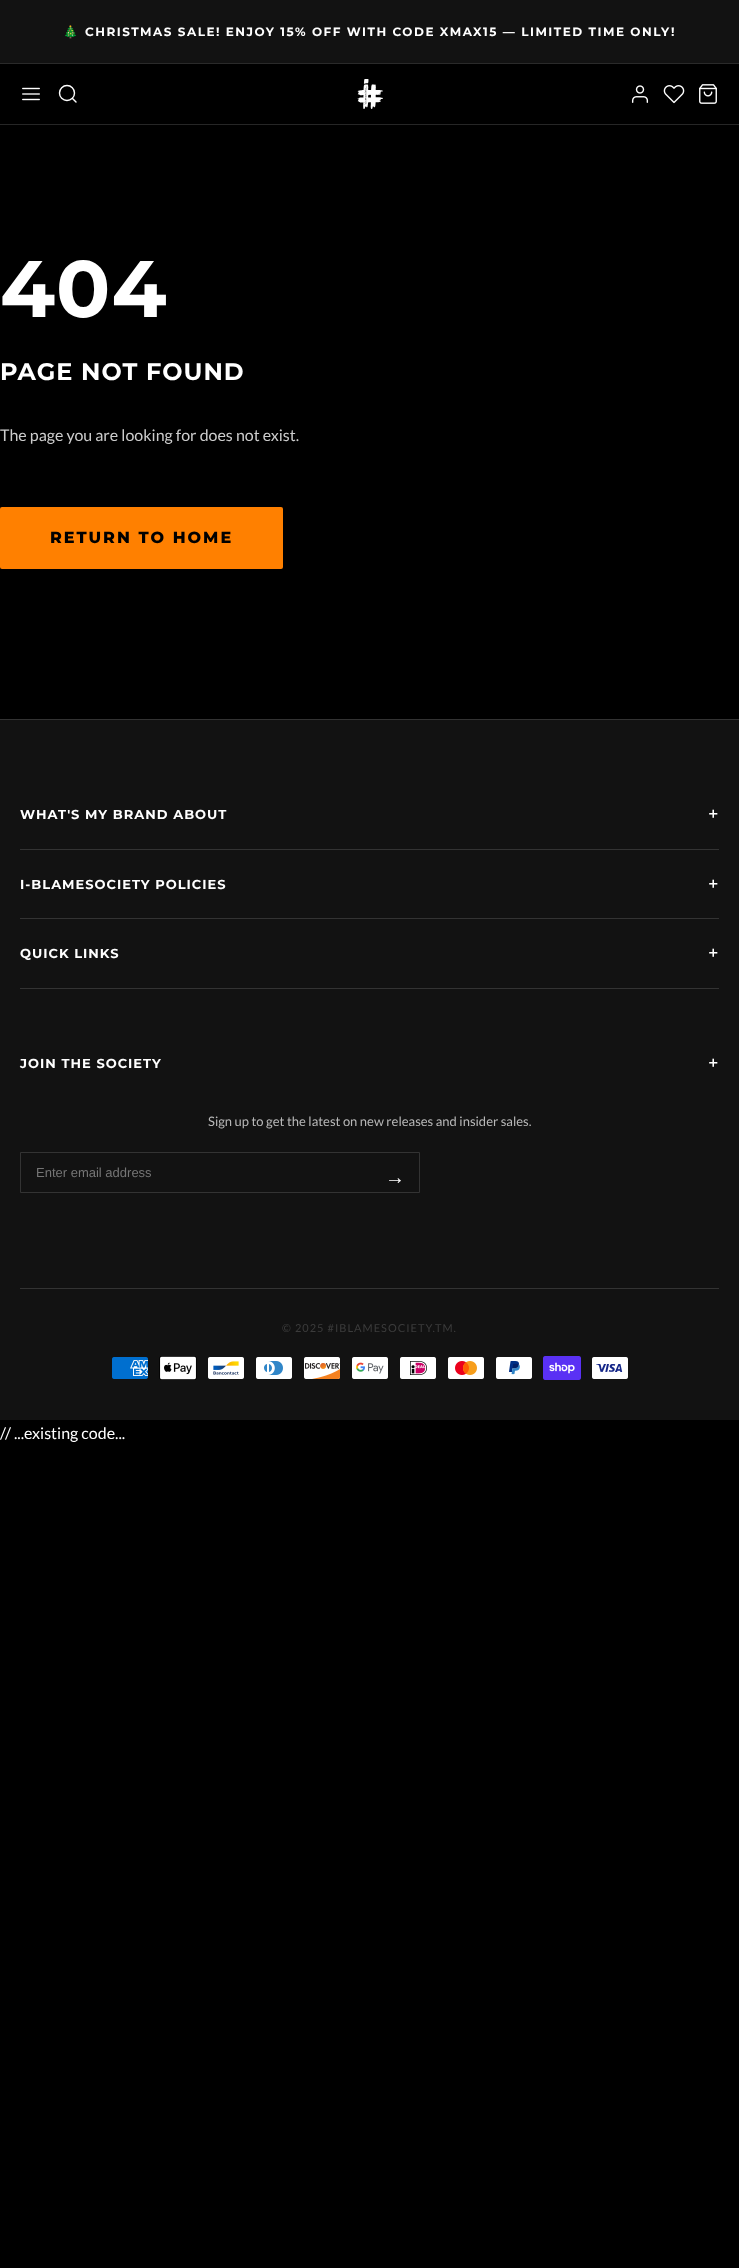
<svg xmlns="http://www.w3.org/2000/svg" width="739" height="2268">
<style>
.a{font:bold 12px Noto Color Emoji;letter-spacing:1.5px;fill:#fff}
.b{font:bold 12px Montserrat;letter-spacing:1.5px;fill:#fff}
.c{font:bold 80px Montserrat;letter-spacing:1px;fill:#fff}
.d{font:bold 24px Montserrat;letter-spacing:1px;fill:#fff}
.e{font:16px Lato;fill:#ccc}
.f{font:800 16px Montserrat;letter-spacing:2px;fill:#000}
.g{font:bold 13px Montserrat;letter-spacing:1px;fill:#fff}
.h{font:500 18px Montserrat;letter-spacing:1px;fill:#fff}
.i{font:13px Lato;fill:#b8b8b8}
.j{font:13px Liberation Sans;fill:#757575}
.k{font:bold 20px Liberation Sans;fill:#fff}
.l{font:11px Lato;letter-spacing:1px;fill:#3c3c3c}
.m{font:16px Lato;fill:#fff}
</style>
<rect width="100%" height="100%" fill="#000"/>
<path fill="#121212" d="M0 0h739v63H0z"/>
<path fill="#2a2a2a" d="M0 63h739v1H0z"/>
<path fill="#262626" d="M0 124h739v1H0z"/>
<image href="1.png" x="22" y="87" width="18" height="14"/>
<circle fill="none" stroke="#fff" stroke-width="1.4" cx="67" cy="93" r="7.5"/>
<path fill="none" stroke="#fff" stroke-width="1.4" stroke-linecap="round" stroke-linejoin="round" d="M76 102l-3.5-3.5"/>
<image href="2.png" x="357" y="79" width="26" height="30"/>
<image href="3.png" x="631" y="85" width="18" height="18"/>
<image href="4.png" x="663" y="85" width="22" height="19"/>
<image href="5.png" x="699" y="84" width="18" height="20"/>
<rect fill="#ff8000" y="507" width="283" height="62" rx="2"/>
<path fill="#121212" d="M0 720h739v700H0z"/>
<path fill="#333" d="M0 719h739v1H0z"/>
<path fill="#333" d="M20 849h699v1H20z"/>
<path fill="#333" d="M20 918h699v1H20z"/>
<path fill="#333" d="M20 988h699v1H20z"/>
<path fill="none" stroke="#333" d="M20.5 1152.5h399v40H20.5z"/>
<path fill="#333" d="M20 1288h699v1H20z"/>
<image href="6.png" x="112" y="1357" width="36" height="22"/>
<image href="7.png" x="159" y="1356" width="38" height="24"/>
<image href="8.png" x="208" y="1357" width="36" height="22"/>
<image href="9.png" x="256" y="1357" width="36" height="22"/>
<image href="10.png" x="304" y="1357" width="36" height="22"/>
<image href="11.png" x="352" y="1357" width="36" height="22"/>
<image href="12.png" x="400" y="1357" width="36" height="22"/>
<image href="13.png" x="448" y="1357" width="36" height="22"/>
<image href="14.png" x="496" y="1357" width="36" height="22"/>
<image href="15.png" x="543" y="1356" width="38" height="24"/>
<image href="16.png" x="592" y="1357" width="36" height="22"/>
<text class="a" x="63" y="36">🎄</text>
<text class="b" x="85" y="36">CHRISTMAS SALE! ENJOY 15% OFF WITH CODE XMAX15 — LIMITED TIME ONLY!</text>
<text class="c" x="0" y="317">404</text>
<text class="d" x="0" y="380">PAGE NOT FOUND</text>
<text class="e" x="0" y="441">The page you are looking for does not exist.</text>
<text class="f" x="50" y="543">RETURN TO HOME</text>
<text class="g" x="20" y="819">WHAT'S MY BRAND ABOUT</text>
<text class="h" x="708" y="820">+</text>
<text class="g" x="20" y="889">I-BLAMESOCIETY POLICIES</text>
<text class="h" x="708" y="890">+</text>
<text class="g" x="20" y="958">QUICK LINKS</text>
<text class="h" x="708" y="959">+</text>
<text class="g" x="20" y="1068">JOIN THE SOCIETY</text>
<text class="h" x="708" y="1069">+</text>
<text class="i" x="208" y="1126">Sign up to get the latest on new releases and insider sales.</text>
<text class="j" x="36" y="1177">Enter email address</text>
<text class="k" x="385" y="1184">→</text>
<text class="l" x="282" y="1332">© 2025 #IBLAMESOCIETY.TM.</text>
<text class="m" x="0" y="1439">// ...existing code...</text>
</svg>
